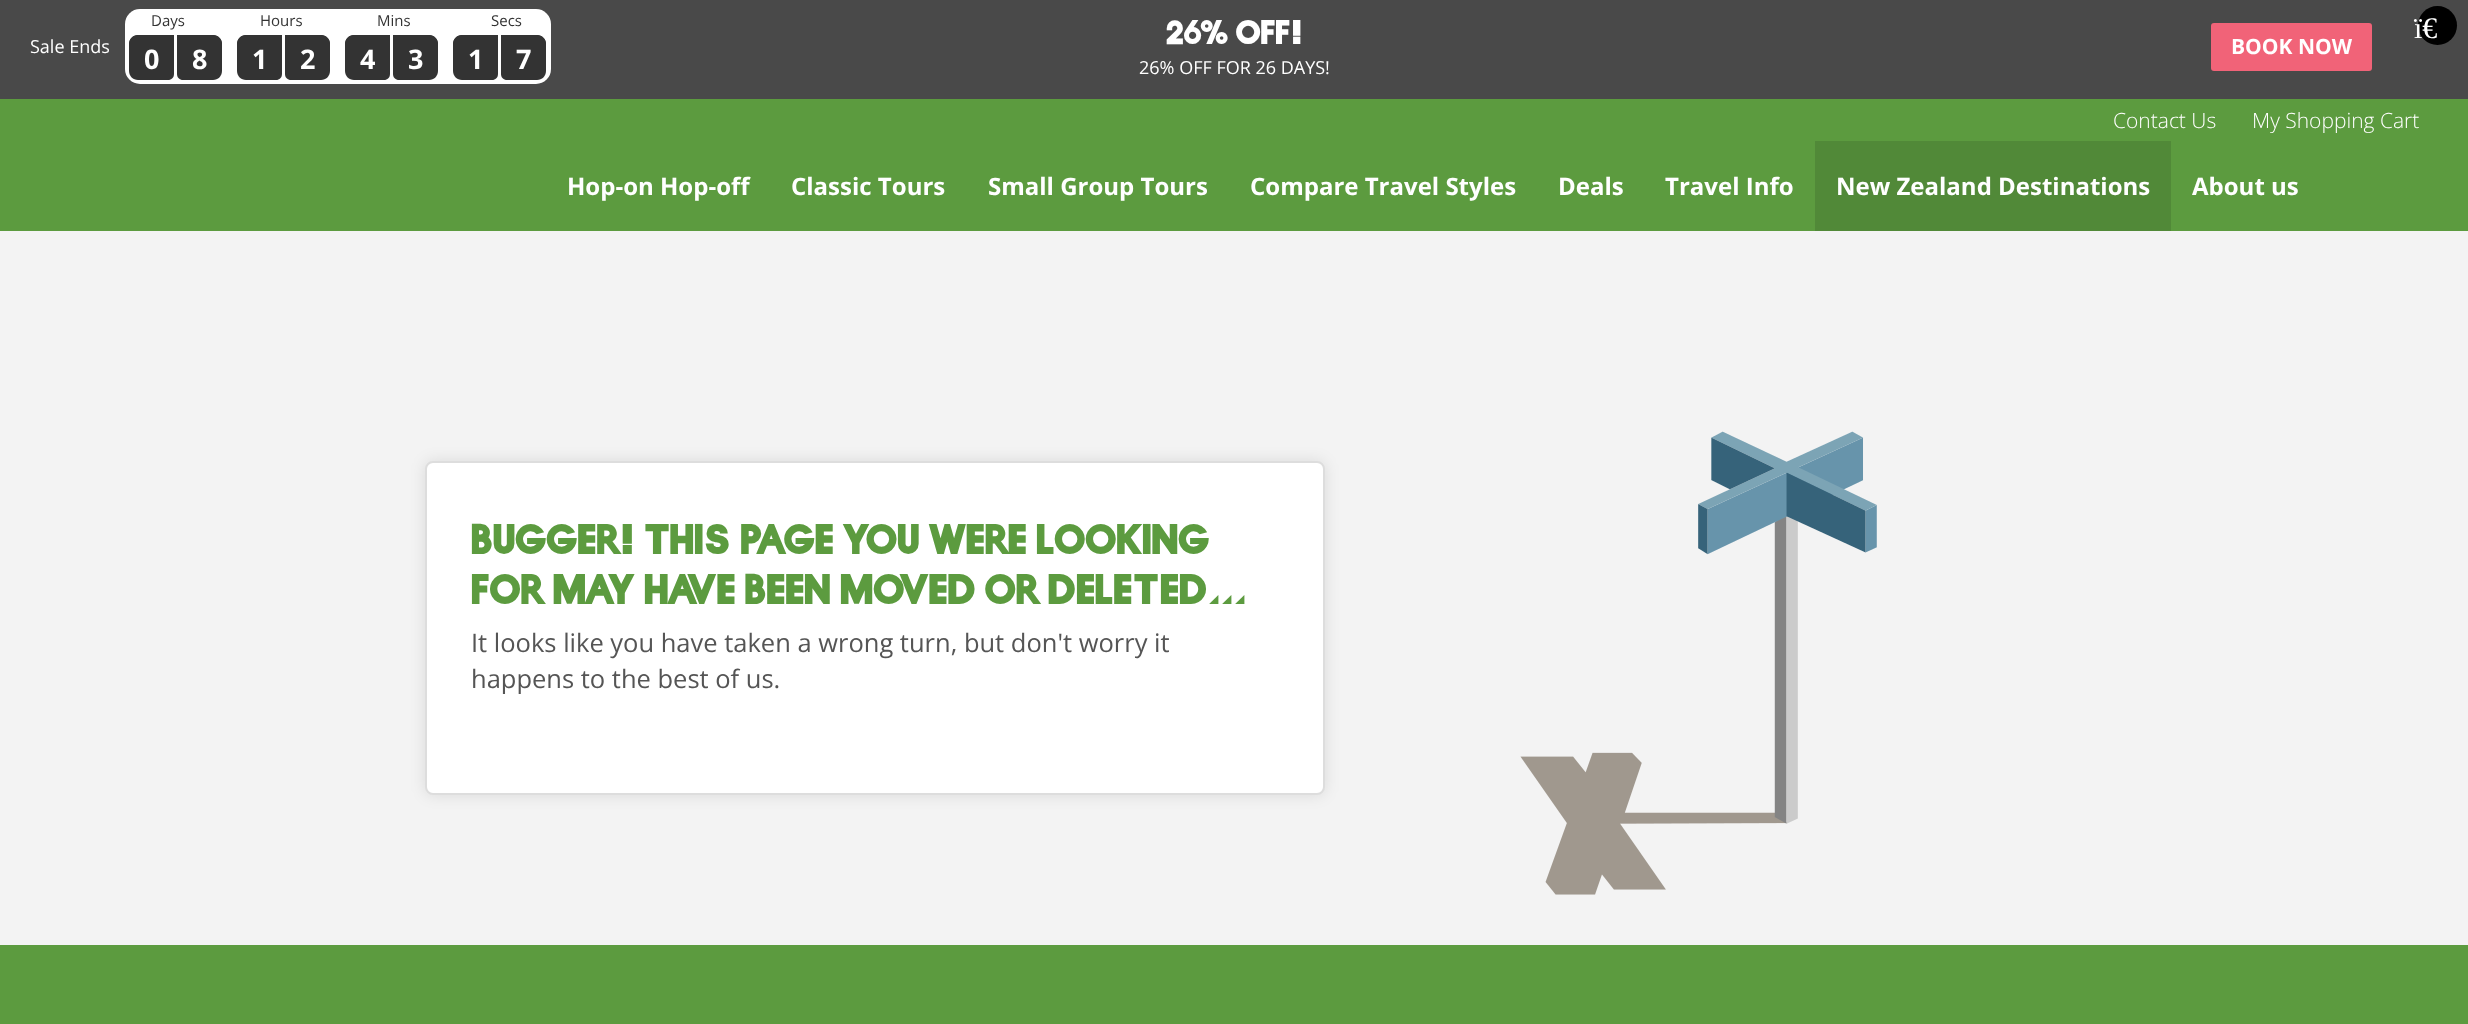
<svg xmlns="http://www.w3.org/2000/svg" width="2468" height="1024">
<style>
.a{font:18px Open Sans;fill:#fff}
.b{font:15px Open Sans;fill:#333}
.c{font:bold 27px Open Sans;fill:#fff}
.d{font:bold 36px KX;fill:#fff}
.e{font:bold 21px Open Sans;fill:#fff}
.f{font:30px Liberation Serif;fill:#fff}
.g{font:300 21px Open Sans;fill:#fff}
.h{font:bold 24px Open Sans;fill:#fff}
.i{font:bold 45px KX;fill:#5c9b3f}
.j{font:25.5px Open Sans;fill:#555}
</style>
<rect width="100%" height="100%" fill="#f3f3f3"/>
<path fill="#494949" d="M0 0h2468v99H0z"/>
<rect fill="#fff" x="125" y="9" width="426" height="75" rx="15"/>
<path fill="#333" d="M138 35h30c3.5 0 6 2.5 6 6v33c0 3.5-2.5 6-6 6h-30c-5 0-9-4-9-9v-27c0-5 4-9 9-9z"/>
<path fill="#333" d="M138 35h36v36h-45v-27c0-5 4-9 9-9z"/>
<path fill="#333" d="M183 35h30c5 0 9 4 9 9v27c0 5-4 9-9 9h-30c-3.5 0-6-2.5-6-6v-33c0-3.5 2.5-6 6-6z"/>
<path fill="#333" d="M177 35h36c5 0 9 4 9 9v27h-45z"/>
<path fill="#333" d="M246 35h30c3.5 0 6 2.5 6 6v33c0 3.5-2.5 6-6 6h-30c-5 0-9-4-9-9v-27c0-5 4-9 9-9z"/>
<path fill="#333" d="M246 35h36v36h-45v-27c0-5 4-9 9-9z"/>
<path fill="#333" d="M291 35h30c5 0 9 4 9 9v27c0 5-4 9-9 9h-30c-3.5 0-6-2.5-6-6v-33c0-3.5 2.5-6 6-6z"/>
<path fill="#333" d="M285 35h36c5 0 9 4 9 9v27h-45z"/>
<path fill="#333" d="M354 35h30c3.5 0 6 2.5 6 6v33c0 3.5-2.5 6-6 6h-30c-5 0-9-4-9-9v-27c0-5 4-9 9-9z"/>
<path fill="#333" d="M354 35h36v36h-45v-27c0-5 4-9 9-9z"/>
<path fill="#333" d="M399 35h30c5 0 9 4 9 9v27c0 5-4 9-9 9h-30c-3.5 0-6-2.5-6-6v-33c0-3.5 2.5-6 6-6z"/>
<path fill="#333" d="M393 35h36c5 0 9 4 9 9v27h-45z"/>
<path fill="#333" d="M462 35h30c3.5 0 6 2.5 6 6v33c0 3.5-2.5 6-6 6h-30c-5 0-9-4-9-9v-27c0-5 4-9 9-9z"/>
<path fill="#333" d="M462 35h36v36h-45v-27c0-5 4-9 9-9z"/>
<path fill="#333" d="M507 35h30c5 0 9 4 9 9v27c0 5-4 9-9 9h-30c-3.5 0-6-2.5-6-6v-33c0-3.5 2.5-6 6-6z"/>
<path fill="#333" d="M501 35h36c5 0 9 4 9 9v27h-45z"/>
<rect fill="#f16378" x="2211" y="23" width="161" height="48" rx="3"/>
<circle fill="#000" cx="2437.5" cy="25.5" r="19.5"/>
<path fill="#5c9b3f" d="M0 99h2468v132H0z"/>
<path fill="#518938" d="M1815 141h356v90H1815z"/>
<rect fill="#0000001a" filter="blur(7.5px)" x="425" y="461" width="900" height="334" rx="8"/>
<rect fill="#fff" stroke="#ddd" stroke-width="2" x="426" y="462" width="898" height="332" rx="7"/>
<image href="1.png" x="1520" y="431" width="357" height="464"/>
<path fill="#5c9b3f" d="M0 945h2468v79H0z"/>
<text class="a" x="30" y="53">Sale Ends</text>
<text class="b" x="151" y="26">Days</text>
<text class="b" x="260" y="26">Hours</text>
<text class="b" x="377" y="26">Mins</text>
<text class="b" x="491" y="26">Secs</text>
<text class="c" x="144" y="69">0</text>
<text class="c" x="192" y="69">8</text>
<text class="c" x="252" y="69">1</text>
<text class="c" x="300" y="69">2</text>
<text class="c" x="360" y="69">4</text>
<text class="c" x="408" y="69">3</text>
<text class="c" x="468" y="69">1</text>
<text class="c" x="516" y="69">7</text>
<text class="d" x="1166" y="44">26% OFF!</text>
<text class="a" x="1139" y="74">26% OFF FOR 26 DAYS!</text>
<text class="e" x="2231" y="54">BOOK NOW</text>
<text class="f" x="2414" y="38">ï€</text>
<text class="g" x="2113" y="128">Contact Us</text>
<text class="g" x="2252" y="128">My Shopping Cart</text>
<text class="h" x="567" y="195">Hop-on Hop-off</text>
<text class="h" x="791" y="195">Classic Tours</text>
<text class="h" x="988" y="195">Small Group Tours</text>
<text class="h" x="1250" y="195">Compare Travel Styles</text>
<text class="h" x="1558" y="195">Deals</text>
<text class="h" x="1665" y="195">Travel Info</text>
<text class="h" x="1836" y="195">New Zealand Destinations</text>
<text class="h" x="2192" y="195">About us</text>
<text class="i" x="471" y="554">Bugger! This page you were looking</text>
<text class="i" x="471" y="604">for may have been moved or deleted...</text>
<text class="j" x="471" y="652">It looks like you have taken a wrong turn, but don't worry it</text>
<text class="j" x="471" y="688">happens to the best of us.</text>
</svg>
